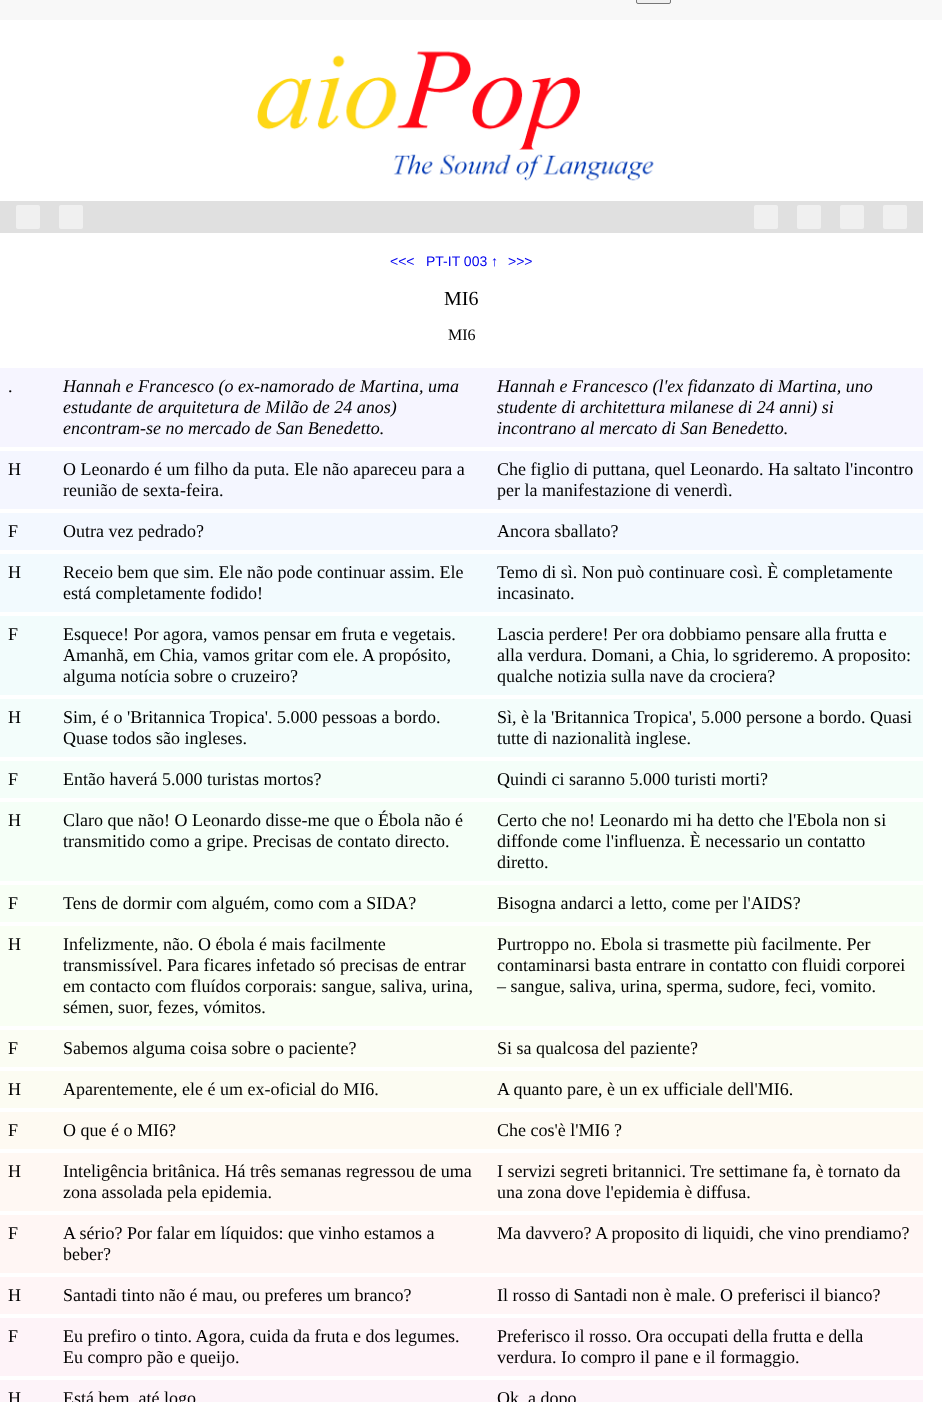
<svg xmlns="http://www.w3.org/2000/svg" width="942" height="1402">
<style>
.a{font:14px Liberation Sans;fill:#00e}
.b{font:20px Liberation Serif;fill:#000}
.c{font:16px Liberation Serif;fill:#000}
.d{font:18px Liberation Serif;fill:#000}
.e{font:italic 18px Liberation Serif;fill:#000}
</style>
<rect width="100%" height="100%" fill="#fff"/>
<path fill="#f8f8f8" d="M0 0h942v20H0z"/>
<rect fill="#efefef" stroke="#767676" x="636.5" y="-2.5" width="34" height="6" rx="1.5"/>
<image href="1.png" x="257" y="51" width="397" height="130"/>
<path fill="#e0e0e0" d="M0 201h923v32H0z"/>
<rect fill="#f0f0f0" x="16" y="205" width="24" height="24" rx="2"/>
<rect fill="#f0f0f0" x="59" y="205" width="24" height="24" rx="2"/>
<rect fill="#f0f0f0" x="754" y="205" width="24" height="24" rx="2"/>
<rect fill="#f0f0f0" x="797" y="205" width="24" height="24" rx="2"/>
<rect fill="#f0f0f0" x="840" y="205" width="24" height="24" rx="2"/>
<rect fill="#f0f0f0" x="883" y="205" width="24" height="24" rx="2"/>
<path fill="#f6f5ff" d="M0 368h923v79H0z"/>
<path fill="#f4f6ff" d="M0 451h923v58H0z"/>
<path fill="#f3f8ff" d="M0 513h923v37H0z"/>
<path fill="#f2fafe" d="M0 554h923v58H0z"/>
<path fill="#f2fcfc" d="M0 616h923v79H0z"/>
<path fill="#f3fdfb" d="M0 699h923v58H0z"/>
<path fill="#f4fef9" d="M0 761h923v37H0z"/>
<path fill="#f5fff7" d="M0 802h923v79H0z"/>
<path fill="#f7fff5" d="M0 885h923v37H0z"/>
<path fill="#f9fff4" d="M0 926h923v100H0z"/>
<path fill="#fbfdf3" d="M0 1030h923v37H0z"/>
<path fill="#fcfcf2" d="M0 1071h923v37H0z"/>
<path fill="#fefaf2" d="M0 1112h923v37H0z"/>
<path fill="#fff8f3" d="M0 1153h923v58H0z"/>
<path fill="#fff6f4" d="M0 1215h923v58H0z"/>
<path fill="#fff5f6" d="M0 1277h923v37H0z"/>
<path fill="#fef3f8" d="M0 1318h923v58H0z"/>
<path fill="#fdf3f9" d="M0 1380h923v22H0z"/>
<text class="a" x="390" y="266">&lt;&lt;&lt;</text>
<text class="a" x="426" y="266">PT-IT 003 ↑</text>
<text class="a" x="508" y="266">&gt;&gt;&gt;</text>
<text class="b" x="444" y="305">MI6</text>
<text class="c" x="448" y="340">MI6</text>
<text class="d" x="8" y="392">.</text>
<text class="e" x="63" y="392">Hannah e Francesco (o ex-namorado de Martina, uma</text>
<text class="e" x="63" y="413">estudante de arquitetura de Milão de 24 anos)</text>
<text class="e" x="63" y="434">encontram-se no mercado de San Benedetto.</text>
<text class="e" x="497" y="392">Hannah e Francesco (l'ex fidanzato di Martina, uno</text>
<text class="e" x="497" y="413">studente di architettura milanese di 24 anni) si</text>
<text class="e" x="497" y="434">incontrano al mercato di San Benedetto.</text>
<text class="d" x="8" y="475">H</text>
<text class="d" x="63" y="475">O Leonardo é um filho da puta. Ele não apareceu para a</text>
<text class="d" x="63" y="496">reunião de sexta-feira.</text>
<text class="d" x="497" y="475">Che figlio di puttana, quel Leonardo. Ha saltato l'incontro</text>
<text class="d" x="497" y="496">per la manifestazione di venerdì.</text>
<text class="d" x="8" y="537">F</text>
<text class="d" x="63" y="537">Outra vez pedrado?</text>
<text class="d" x="497" y="537">Ancora sballato?</text>
<text class="d" x="8" y="578">H</text>
<text class="d" x="63" y="578">Receio bem que sim. Ele não pode continuar assim. Ele</text>
<text class="d" x="63" y="599">está completamente fodido!</text>
<text class="d" x="497" y="578">Temo di sì. Non può continuare così. È completamente</text>
<text class="d" x="497" y="599">incasinato.</text>
<text class="d" x="8" y="640">F</text>
<text class="d" x="63" y="640">Esquece! Por agora, vamos pensar em fruta e vegetais.</text>
<text class="d" x="63" y="661">Amanhã, em Chia, vamos gritar com ele. A propósito,</text>
<text class="d" x="63" y="682">alguma notícia sobre o cruzeiro?</text>
<text class="d" x="497" y="640">Lascia perdere! Per ora dobbiamo pensare alla frutta e</text>
<text class="d" x="497" y="661">alla verdura. Domani, a Chia, lo sgrideremo. A proposito:</text>
<text class="d" x="497" y="682">qualche notizia sulla nave da crociera?</text>
<text class="d" x="8" y="723">H</text>
<text class="d" x="63" y="723">Sim, é o 'Britannica Tropica'. 5.000 pessoas a bordo.</text>
<text class="d" x="63" y="744">Quase todos são ingleses.</text>
<text class="d" x="497" y="723">Sì, è la 'Britannica Tropica', 5.000 persone a bordo. Quasi</text>
<text class="d" x="497" y="744">tutte di nazionalità inglese.</text>
<text class="d" x="8" y="785">F</text>
<text class="d" x="63" y="785">Então haverá 5.000 turistas mortos?</text>
<text class="d" x="497" y="785">Quindi ci saranno 5.000 turisti morti?</text>
<text class="d" x="8" y="826">H</text>
<text class="d" x="63" y="826">Claro que não! O Leonardo disse-me que o Ébola não é</text>
<text class="d" x="63" y="847">transmitido como a gripe. Precisas de contato directo.</text>
<text class="d" x="497" y="826">Certo che no! Leonardo mi ha detto che l'Ebola non si</text>
<text class="d" x="497" y="847">diffonde come l'influenza. È necessario un contatto</text>
<text class="d" x="497" y="868">diretto.</text>
<text class="d" x="8" y="909">F</text>
<text class="d" x="63" y="909">Tens de dormir com alguém, como com a SIDA?</text>
<text class="d" x="497" y="909">Bisogna andarci a letto, come per l'AIDS?</text>
<text class="d" x="8" y="950">H</text>
<text class="d" x="63" y="950">Infelizmente, não. O ébola é mais facilmente</text>
<text class="d" x="63" y="971">transmissível. Para ficares infetado só precisas de entrar</text>
<text class="d" x="63" y="992">em contacto com fluídos corporais: sangue, saliva, urina,</text>
<text class="d" x="63" y="1013">sémen, suor, fezes, vómitos.</text>
<text class="d" x="497" y="950">Purtroppo no. Ebola si trasmette più facilmente. Per</text>
<text class="d" x="497" y="971">contaminarsi basta entrare in contatto con fluidi corporei</text>
<text class="d" x="497" y="992">– sangue, saliva, urina, sperma, sudore, feci, vomito.</text>
<text class="d" x="8" y="1054">F</text>
<text class="d" x="63" y="1054">Sabemos alguma coisa sobre o paciente?</text>
<text class="d" x="497" y="1054">Si sa qualcosa del paziente?</text>
<text class="d" x="8" y="1095">H</text>
<text class="d" x="63" y="1095">Aparentemente, ele é um ex-oficial do MI6.</text>
<text class="d" x="497" y="1095">A quanto pare, è un ex ufficiale dell'MI6.</text>
<text class="d" x="8" y="1136">F</text>
<text class="d" x="63" y="1136">O que é o MI6?</text>
<text class="d" x="497" y="1136">Che cos'è l'MI6 ?</text>
<text class="d" x="8" y="1177">H</text>
<text class="d" x="63" y="1177">Inteligência britânica. Há três semanas regressou de uma</text>
<text class="d" x="63" y="1198">zona assolada pela epidemia.</text>
<text class="d" x="497" y="1177">I servizi segreti britannici. Tre settimane fa, è tornato da</text>
<text class="d" x="497" y="1198">una zona dove l'epidemia è diffusa.</text>
<text class="d" x="8" y="1239">F</text>
<text class="d" x="63" y="1239">A sério? Por falar em líquidos: que vinho estamos a</text>
<text class="d" x="63" y="1260">beber?</text>
<text class="d" x="497" y="1239">Ma davvero? A proposito di liquidi, che vino prendiamo?</text>
<text class="d" x="8" y="1301">H</text>
<text class="d" x="63" y="1301">Santadi tinto não é mau, ou preferes um branco?</text>
<text class="d" x="497" y="1301">Il rosso di Santadi non è male. O preferisci il bianco?</text>
<text class="d" x="8" y="1342">F</text>
<text class="d" x="63" y="1342">Eu prefiro o tinto. Agora, cuida da fruta e dos legumes.</text>
<text class="d" x="63" y="1363">Eu compro pão e queijo.</text>
<text class="d" x="497" y="1342">Preferisco il rosso. Ora occupati della frutta e della</text>
<text class="d" x="497" y="1363">verdura. Io compro il pane e il formaggio.</text>
<text class="d" x="8" y="1404">H</text>
<text class="d" x="63" y="1404">Está bem, até logo</text>
<text class="d" x="497" y="1404">Ok, a dopo</text>
</svg>
